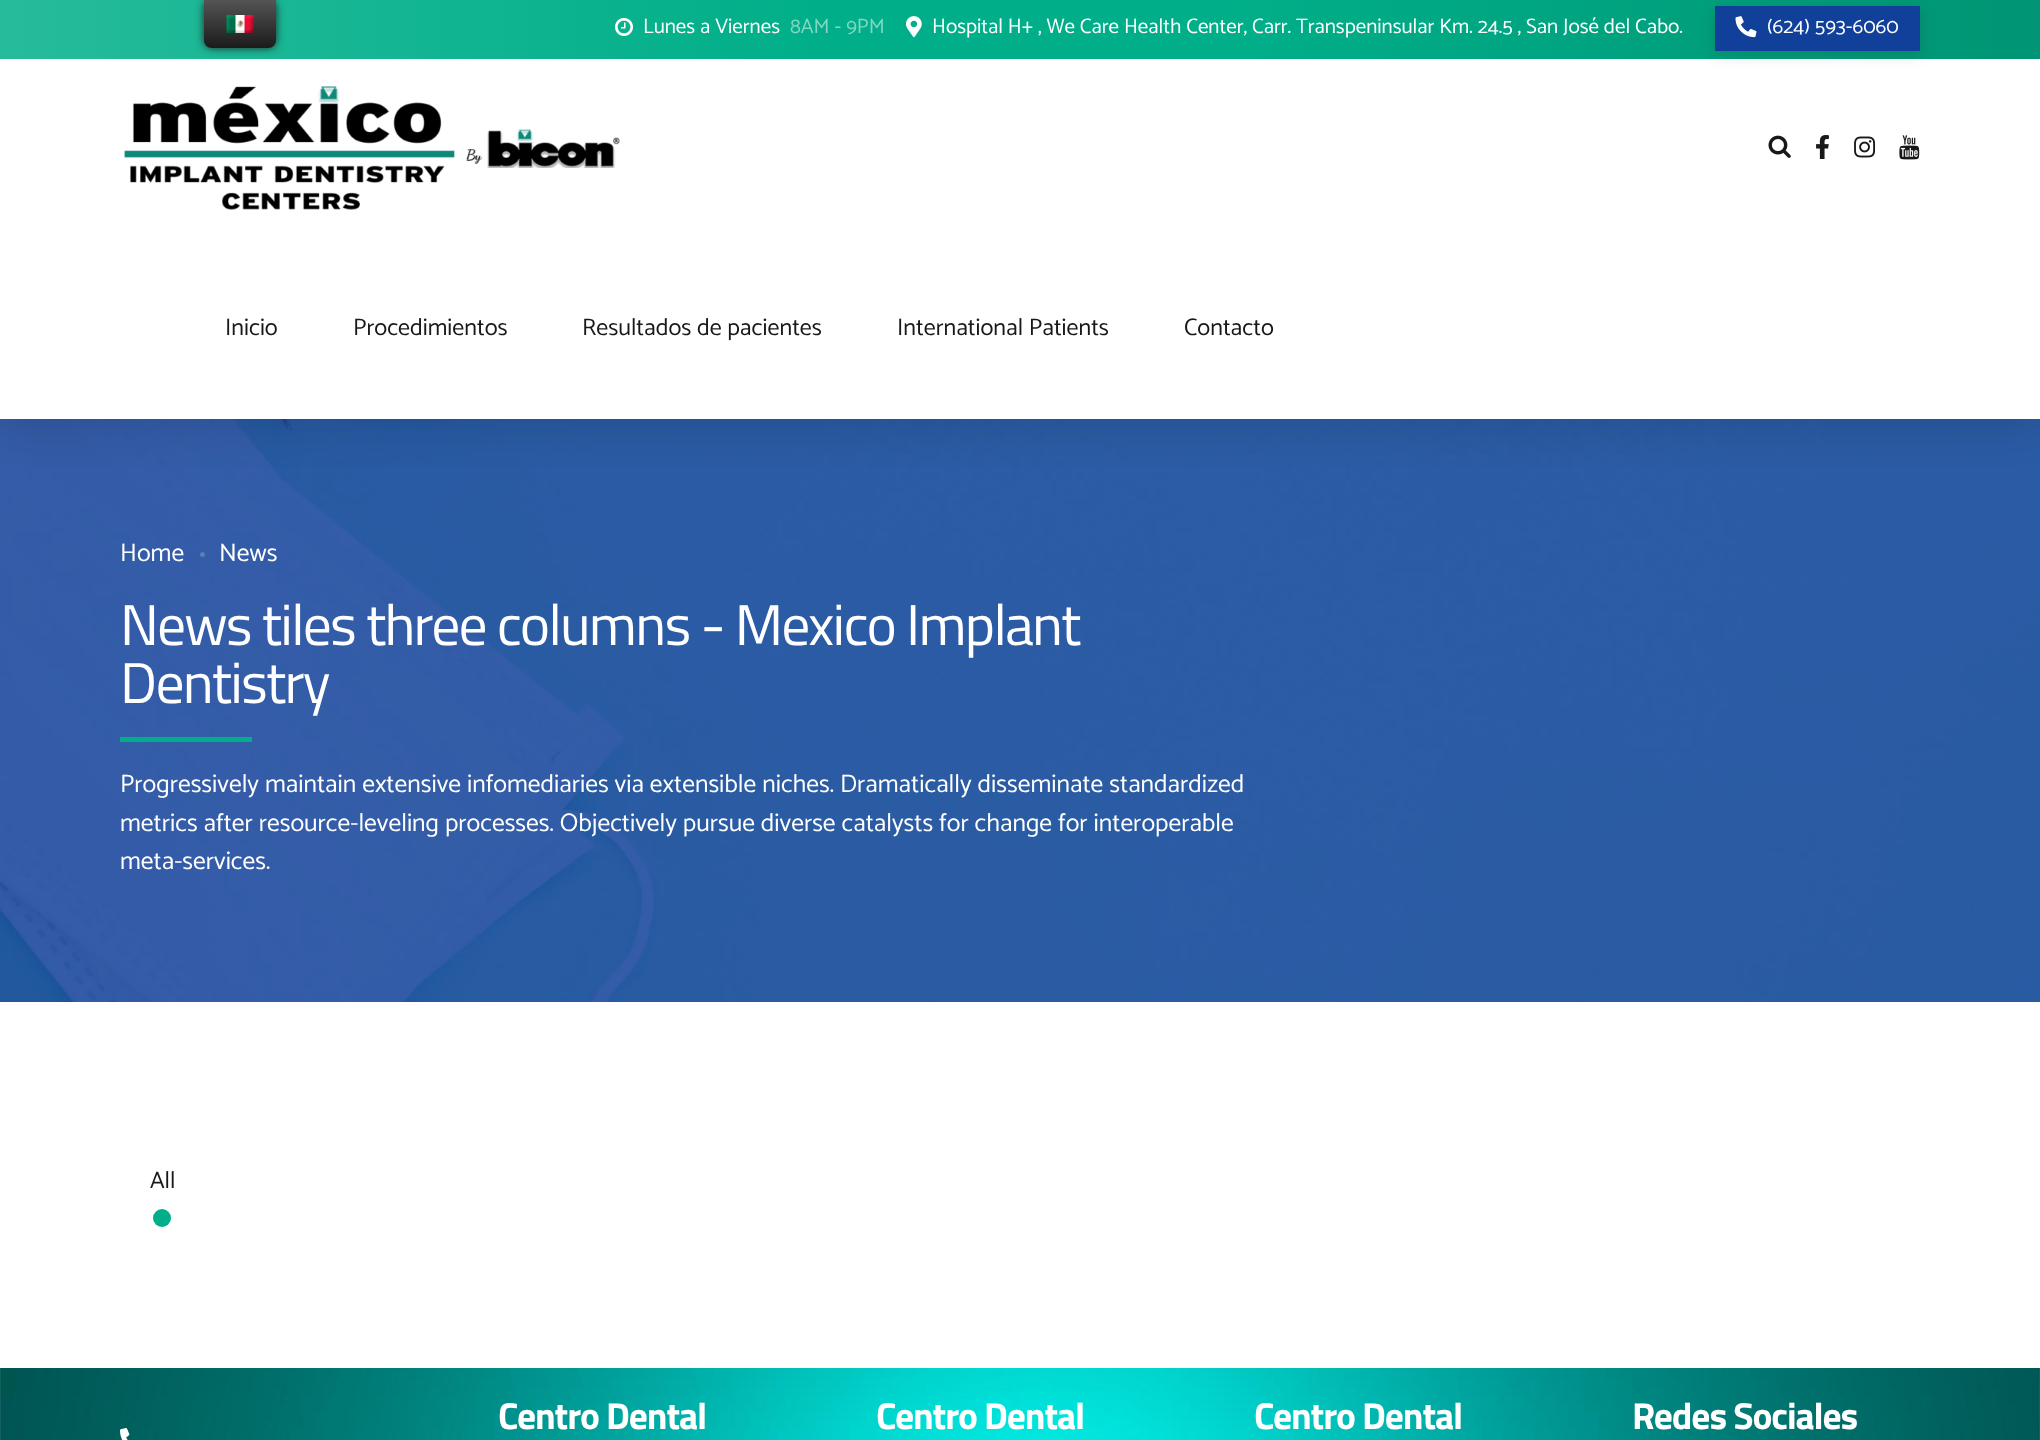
<svg xmlns="http://www.w3.org/2000/svg" width="2040" height="1440">
<style>
.a{font:21px Catamaran;fill:#fff}
.b{font:21px Catamaran;fill:#80d7c4}
.c{font:24px Catamaran;fill:#181818}
.d{font:25.5px Catamaran;fill:#fff}
.e{font:57.6px Titillium Web;letter-spacing:-1.75px;fill:#fff}
.f{font:bold 37.5px Titillium Web;letter-spacing:-1.1px;fill:#fff}
</style>
<defs>
<linearGradient id="g1" gradientUnits="userSpaceOnUse" x1="0" y1="29" x2="2040" y2="29"><stop offset="0" stop-color="#26bb9b"/><stop offset="0.4" stop-color="#00af89"/><stop offset="0.6" stop-color="#00af89"/><stop offset="1" stop-color="#009574"/></linearGradient>
<linearGradient id="g2" gradientUnits="userSpaceOnUse" x1="240" y1="48" x2="240" y2="0"><stop offset="0" stop-color="#1b1b1b"/><stop offset="1" stop-color="#545454"/></linearGradient>
</defs>
<rect width="100%" height="100%" fill="#fff"/>
<image href="10.png" x="0" y="419" width="2040" height="583"/>
<path fill="#00000026" filter="blur(22.5px)" d="M0 3h2040v419H0z"/>
<path fill="#fff" d="M0 59h2040v360H0z"/>
<path fill="url(#g1)" d="M0 0h2040v59H0z"/>
<rect fill="#212121" filter="blur(4px)" x="204" width="72" height="48" rx="8"/>
<path fill="url(#g2)" d="M204 0h72v40c0 4.5-3.5 8-8 8h-56c-4.5 0-8-3.5-8-8z"/>
<image href="1.png" x="226" y="15" width="28" height="18"/>
<image href="2.png" x="615" y="18" width="18" height="18"/>
<image href="3.png" x="906" y="16" width="16" height="22"/>
<path fill="#22222233" filter="blur(7.5px)" d="M1715 9h205v45H1715z"/>
<path fill="#104099" d="M1715 6h205v45H1715z"/>
<image href="4.png" x="1735" y="16" width="22" height="22"/>
<image href="5.png" x="124" y="86" width="496" height="124"/>
<image href="6.png" x="1768" y="135" width="23" height="23"/>
<image href="7.png" x="1816" y="135" width="13" height="24"/>
<image href="8.png" x="1854" y="136" width="22" height="22"/>
<image href="9.png" x="1899" y="135" width="21" height="25"/>
<circle fill="#5c7cb9" cx="202.5" cy="554.5" r="2.5"/>
<path fill="#00af89" d="M120 737h132v5H120z"/>
<circle fill="#00af89" cx="162" cy="1218" r="9"/>
<image href="11.png" x="0" y="1368" width="2040" height="72"/>
<image href="12.png" x="120" y="1428" width="10" height="12"/>
<text class="a" x="643" y="33">Lunes a Viernes</text>
<text class="b" x="790" y="33">8AM - 9PM</text>
<text class="a" x="932" y="33">Hospital H+ , We Care Health Center, Carr. Transpeninsular Km. 24.5 , San José del Cabo.</text>
<text class="a" x="1767" y="33">(624) 593-6060</text>
<text class="c" x="225" y="335">Inicio</text>
<text class="c" x="353" y="335">Procedimientos</text>
<text class="c" x="582" y="335">Resultados de pacientes</text>
<text class="c" x="897" y="335">International Patients</text>
<text class="c" x="1184" y="335">Contacto</text>
<text class="d" x="120" y="561">Home</text>
<text class="d" x="219" y="561">News</text>
<text class="e" x="120" y="645">News tiles three columns - Mexico Implant</text>
<text class="e" x="120" y="703">Dentistry</text>
<text class="d" x="120" y="792">Progressively maintain extensive infomediaries via extensible niches. Dramatically disseminate standardized</text>
<text class="d" x="120" y="831">metrics after resource-leveling processes. Objectively pursue diverse catalysts for change for interoperable</text>
<text class="d" x="120" y="869">meta-services.</text>
<text class="c" x="150" y="1188">All</text>
<text class="f" x="498" y="1429">Centro Dental</text>
<text class="f" x="876" y="1429">Centro Dental</text>
<text class="f" x="1254" y="1429">Centro Dental</text>
<text class="f" x="1632" y="1429">Redes Sociales</text>
</svg>
